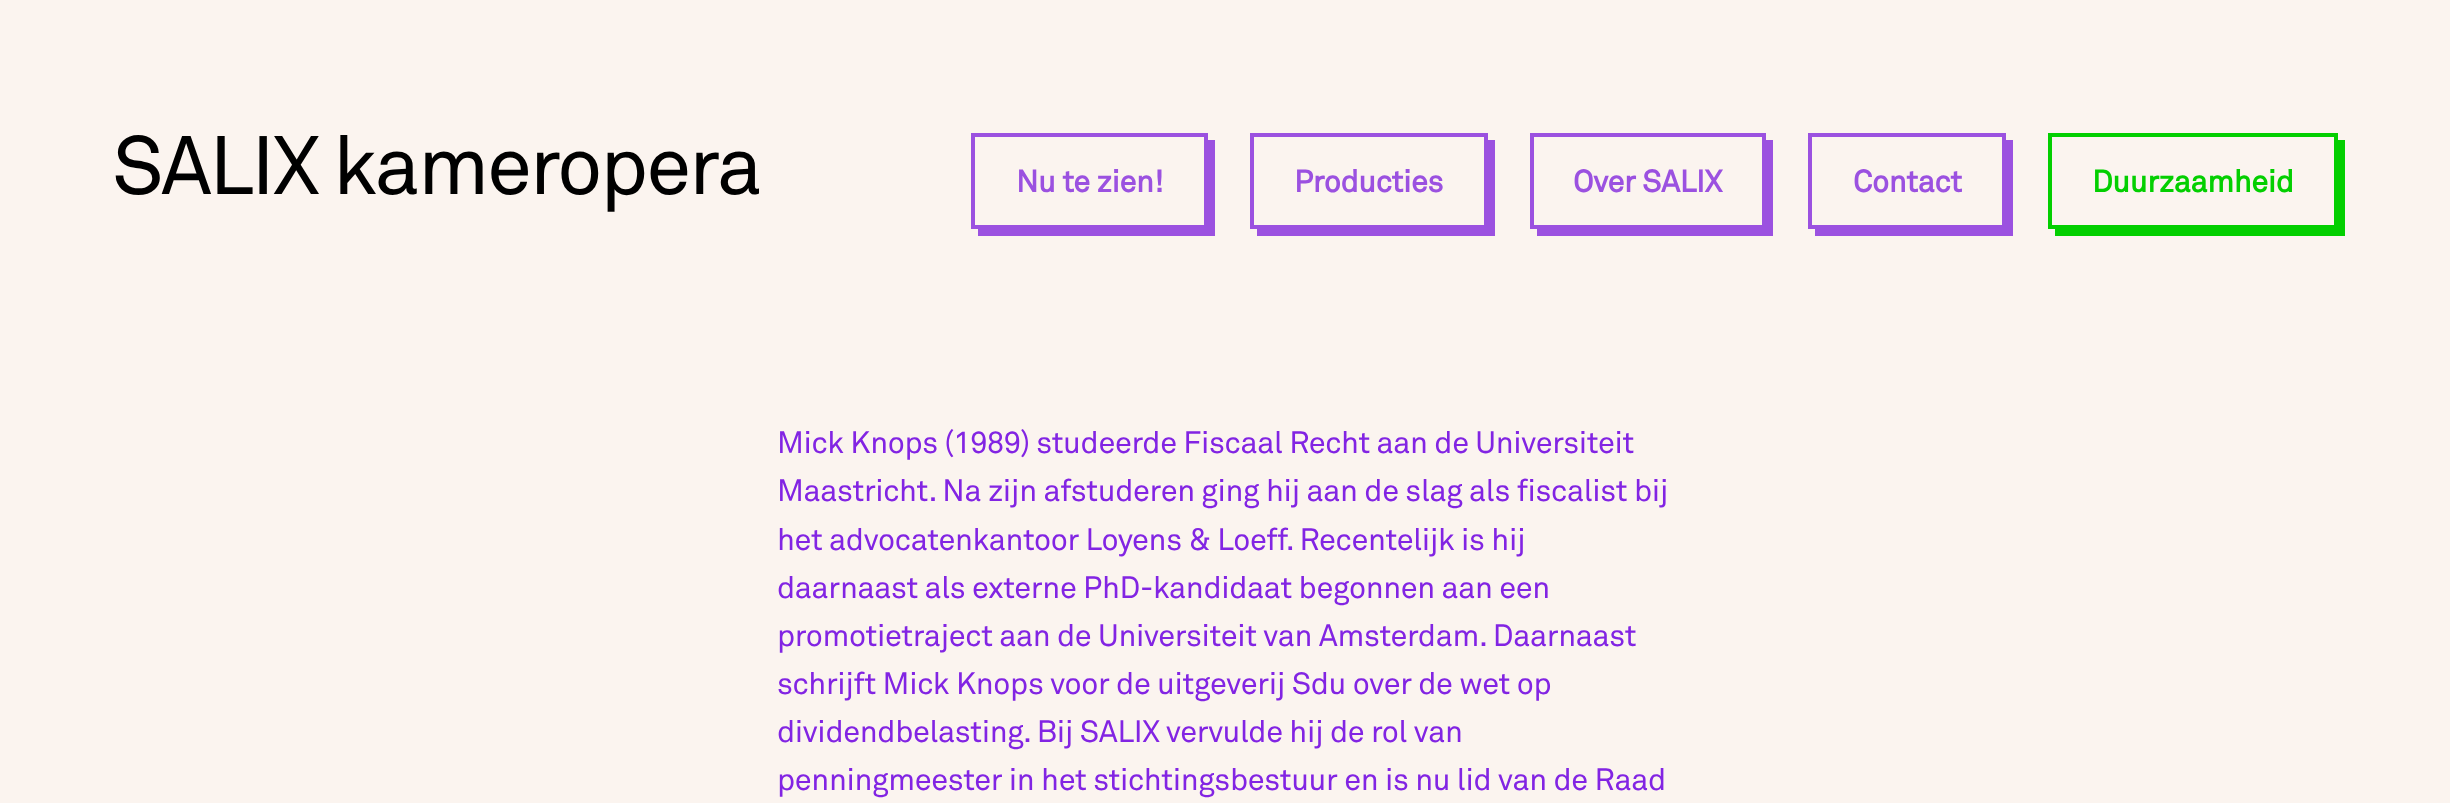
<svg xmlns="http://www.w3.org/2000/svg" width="2450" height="803">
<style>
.a{font:81.75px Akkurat;letter-spacing:-2.5px;fill:#000}
.b{font:bold 30.6px Akkurat;letter-spacing:-0.35px;fill:#9b51e0}
.c{font:bold 30.6px Akkurat;letter-spacing:-0.35px;fill:#03cf00}
.d{font:30.6px Akkurat;letter-spacing:-0.35px;fill:#8224e3}
</style>
<rect width="100%" height="100%" fill="#fbf4ef"/>
<path fill="#9b51e0" d="M978 229v7h237v-96h-7v89z"/>
<path fill="none" stroke="#9b51e0" stroke-width="4" d="M973 135h233v92H973z"/>
<path fill="#9b51e0" d="M1257 229v7h238v-96h-7v89z"/>
<path fill="none" stroke="#9b51e0" stroke-width="4" d="M1252 135h234v92H1252z"/>
<path fill="#9b51e0" d="M1537 229v7h236v-96h-7v89z"/>
<path fill="none" stroke="#9b51e0" stroke-width="4" d="M1532 135h232v92H1532z"/>
<path fill="#9b51e0" d="M1815 229v7h198v-96h-7v89z"/>
<path fill="none" stroke="#9b51e0" stroke-width="4" d="M1810 135h194v92H1810z"/>
<path fill="#03cf00" d="M2055 229v7h290v-96h-7v89z"/>
<path fill="none" stroke="#03cf00" stroke-width="4" d="M2050 135h286v92H2050z"/>
<text class="a" x="112" y="194">SALIX kameropera</text>
<text class="b" x="1016" y="192">Nu te zien!</text>
<text class="b" x="1294" y="192">Producties</text>
<text class="b" x="1573" y="192">Over SALIX</text>
<text class="b" x="1853" y="192">Contact</text>
<text class="c" x="2092" y="192">Duurzaamheid</text>
<text class="d" x="777" y="453">Mick Knops (1989) studeerde Fiscaal Recht aan de Universiteit</text>
<text class="d" x="777" y="501">Maastricht. Na zijn afstuderen ging hij aan de slag als fiscalist bij</text>
<text class="d" x="777" y="550">het advocatenkantoor Loyens &amp; Loeff. Recentelijk is hij</text>
<text class="d" x="777" y="598">daarnaast als externe PhD-kandidaat begonnen aan een</text>
<text class="d" x="777" y="646">promotietraject aan de Universiteit van Amsterdam. Daarnaast</text>
<text class="d" x="777" y="694">schrijft Mick Knops voor de uitgeverij Sdu over de wet op</text>
<text class="d" x="777" y="742">dividendbelasting. Bij SALIX vervulde hij de rol van</text>
<text class="d" x="777" y="790">penningmeester in het stichtingsbestuur en is nu lid van de Raad</text>
</svg>
